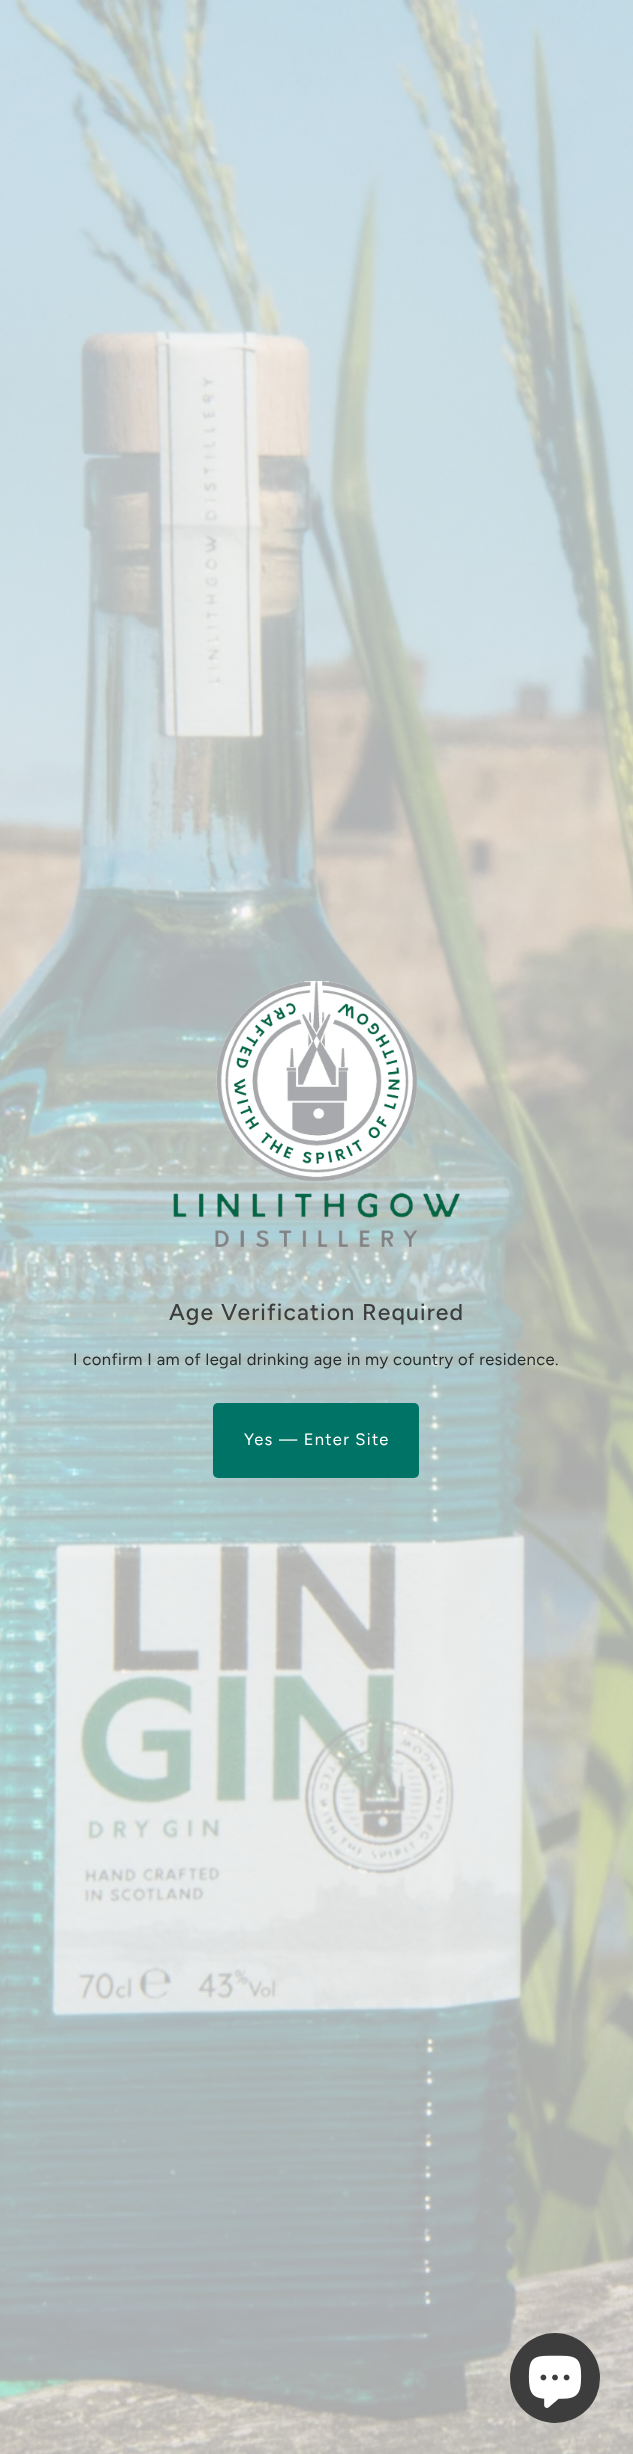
<svg xmlns="http://www.w3.org/2000/svg" width="633" height="2454">
<style>
.a{font:500 23px Figtree;letter-spacing:1.15px;fill:#3d3d3d}
.b{font:16.6px Figtree;letter-spacing:0.4px;fill:#262b2c}
.c{font:16.6px Figtree;letter-spacing:1.25px;fill:#fff}
</style>
<rect width="100%" height="100%" fill="#fff"/>
<image href="1.png" x="0" y="0" width="633" height="2454"/>
<image href="2.png" x="173" y="981" width="287" height="267"/>
<rect fill="#007367" x="213" y="1403" width="206" height="75" rx="5"/>
<circle fill="#3d3d3d" cx="555" cy="2378" r="45"/>
<image href="3.png" x="528" y="2355" width="54" height="53"/>
<text class="a" x="169" y="1320">Age Verification Required</text>
<text class="b" x="73" y="1365">I confirm I am of legal drinking age in my country of residence.</text>
<text class="c" x="244" y="1445">Yes — Enter Site</text>
</svg>
